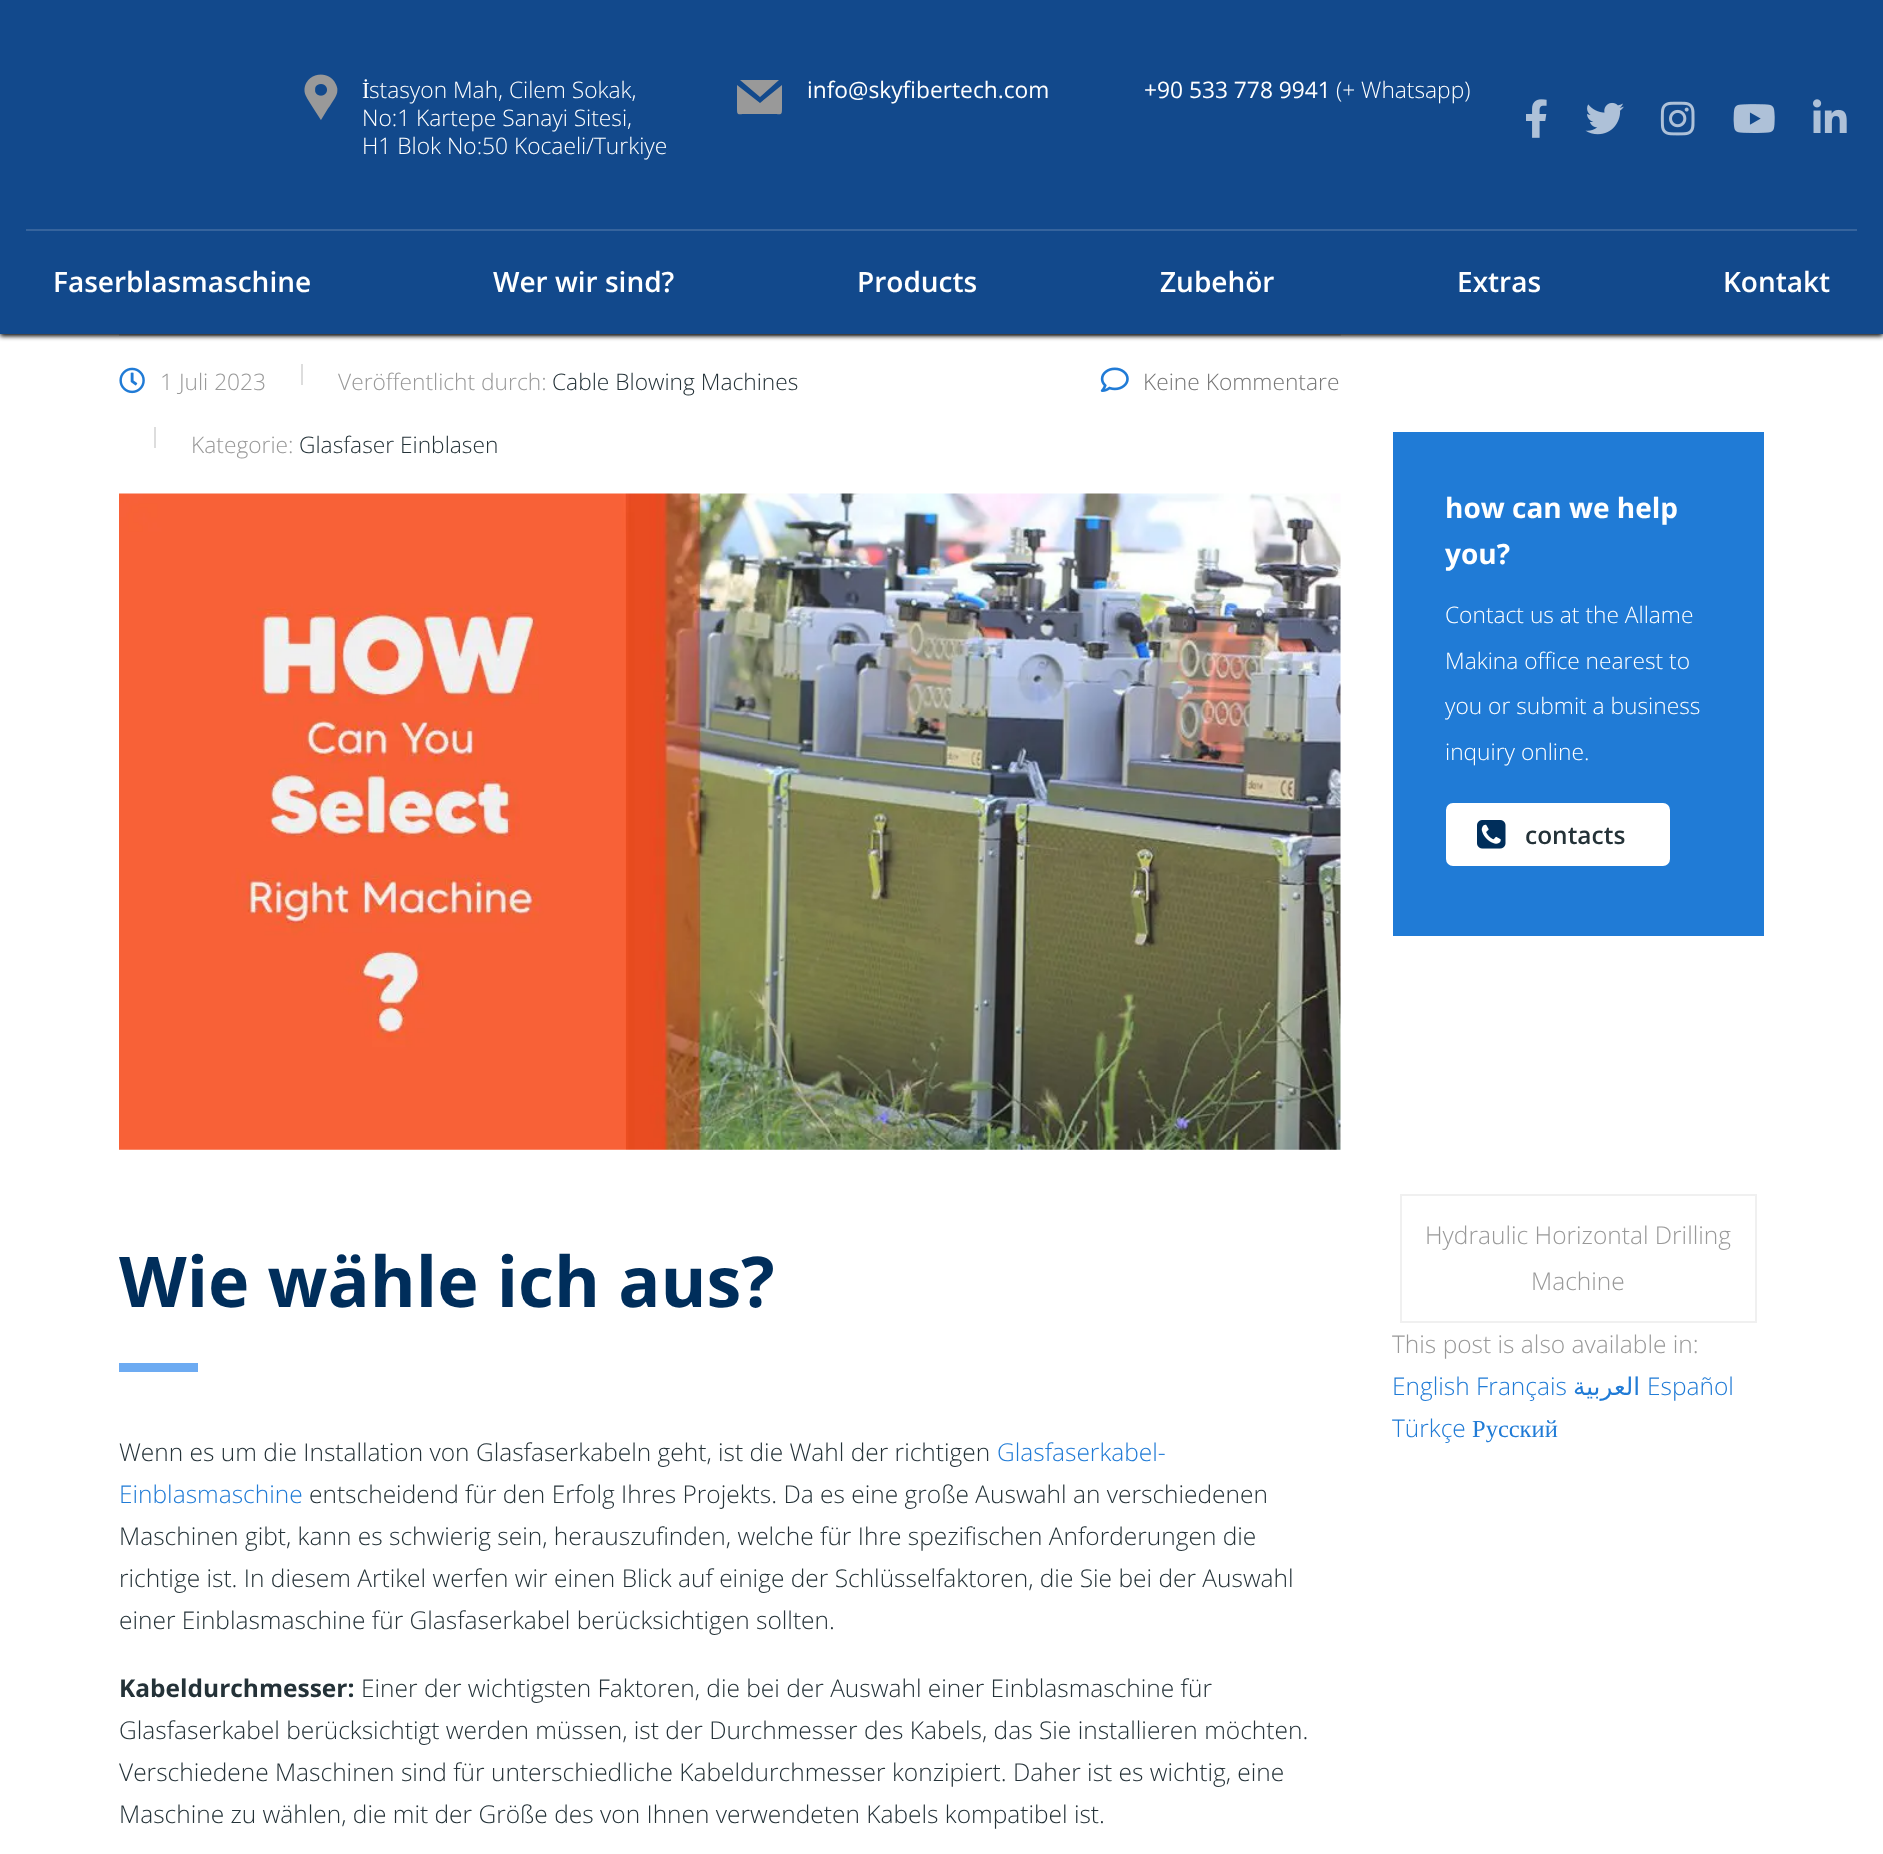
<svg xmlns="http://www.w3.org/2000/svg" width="1883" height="1854">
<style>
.a{font:22.75px Liberation Serif;fill:#fff}
.b{font:300 22.75px Open Sans;fill:#fff}
.c{font:22.75px Open Sans;fill:#fff}
.d{font:600 28px Open Sans;fill:#fff}
.e{font:300 22.75px Open Sans;fill:#999}
.f{font:300 22.75px Open Sans;fill:#243238}
.g{font:300 22.75px Open Sans;fill:#777}
.h{font:bold 70px Open Sans;fill:#002e5b}
.i{font:300 24.5px Open Sans;fill:#243238}
.j{font:300 24.5px Open Sans;fill:#207bd6}
.k{font:bold 24.5px Open Sans;fill:#243238}
.l{font:bold 28px Open Sans;fill:#fff}
.m{font:600 24.5px Open Sans;fill:#243238}
.n{font:300 24.5px Open Sans;fill:#999}
.o{font:24.5px DejaVu Sans;direction:rtl;fill:#207bd6}
.p{font:24.5px Liberation Serif;fill:#207bd6}
</style>
<rect width="100%" height="100%" fill="#fff"/>
<path fill="#ddd" d="M119 334h1222v2H119z"/>
<path fill="#010101" filter="blur(2.5px)" d="M0 2h1883v334H0z"/>
<path fill="#12498c" d="M0 0h1883v334H0z"/>
<image href="1.png" x="304" y="74" width="34" height="46"/>
<path fill="#999" d="M782 85v22c0 9 0 7-9 7h-27c-9 0-9 2-9-7v-22l23 18zm-3-5h-39l20 17z"/>
<image href="2.png" x="1526" y="99" width="21" height="39"/>
<image href="3.png" x="1585" y="102" width="39" height="33"/>
<image href="4.png" x="1660" y="101" width="35" height="35"/>
<image href="5.png" x="1733" y="104" width="42" height="29"/>
<image href="6.png" x="1813" y="99" width="34" height="34"/>
<path fill="#36649d" d="M26 229h1831v2H26z"/>
<image href="7.png" x="119" y="367" width="26" height="27"/>
<path fill="#ddd" d="M301 364h2v21H301z"/>
<path fill="#ddd" d="M154 427h2v21H154z"/>
<image href="8.png" x="1100" y="367" width="29" height="25"/>
<image href="9.png" x="119" y="493" width="1222" height="657"/>
<path fill="#6dabf2" d="M119 1363h79v9H119z"/>
<path fill="#207bd6" d="M1393 432h371v504H1393z"/>
<rect fill="#fff" stroke="#fff" stroke-width="5" x="1448.5" y="805.5" width="219" height="58" rx="4.5"/>
<image href="10.png" x="1477" y="820" width="29" height="29"/>
<path fill="none" stroke="#f0f0f0" stroke-width="2" d="M1401 1195h355v127H1401z"/>
<text class="a" x="362" y="98">İ</text>
<text class="b" x="369" y="98">stasyon Mah, Cilem Sokak,</text>
<text class="b" x="362" y="126">No:1 Kartepe Sanayi Sitesi,</text>
<text class="b" x="362" y="154">H1 Blok No:50 Kocaeli/Turkiye</text>
<text class="c" x="807" y="98">info@skyfibertech.com</text>
<text class="c" x="1144" y="98">+90 533 778 9941</text>
<text class="b" x="1336" y="98">(+ Whatsapp)</text>
<text class="d" x="53" y="292">Faserblasmaschine</text>
<text class="d" x="493" y="292">Wer wir sind?</text>
<text class="d" x="857" y="292">Products</text>
<text class="d" x="1160" y="292">Zubehör</text>
<text class="d" x="1457" y="292">Extras</text>
<text class="d" x="1723" y="292">Kontakt</text>
<text class="e" x="160" y="390">1 Juli 2023</text>
<text class="e" x="338" y="390">Veröffentlicht durch:</text>
<text class="f" x="552" y="390">Cable Blowing Machines</text>
<text class="e" x="191" y="453">Kategorie:</text>
<text class="f" x="299" y="453">Glasfaser Einblasen</text>
<text class="g" x="1143" y="390">Keine Kommentare</text>
<text class="h" x="119" y="1307">Wie wähle ich aus?</text>
<text class="i" x="119" y="1461">Wenn es um die Installation von Glasfaserkabeln geht, ist die Wahl der richtigen</text>
<text class="j" x="997" y="1461">Glasfaserkabel-</text>
<text class="j" x="119" y="1503">Einblasmaschine</text>
<text class="i" x="309" y="1503">entscheidend für den Erfolg Ihres Projekts. Da es eine große Auswahl an verschiedenen</text>
<text class="i" x="119" y="1545">Maschinen gibt, kann es schwierig sein, herauszufinden, welche für Ihre spezifischen Anforderungen die</text>
<text class="i" x="119" y="1587">richtige ist. In diesem Artikel werfen wir einen Blick auf einige der Schlüsselfaktoren, die Sie bei der Auswahl</text>
<text class="i" x="119" y="1629">einer Einblasmaschine für Glasfaserkabel berücksichtigen sollten.</text>
<text class="k" x="119" y="1697">Kabeldurchmesser:</text>
<text class="i" x="361" y="1697">Einer der wichtigsten Faktoren, die bei der Auswahl einer Einblasmaschine für</text>
<text class="i" x="119" y="1739">Glasfaserkabel berücksichtigt werden müssen, ist der Durchmesser des Kabels, das Sie installieren möchten.</text>
<text class="i" x="119" y="1781">Verschiedene Maschinen sind für unterschiedliche Kabeldurchmesser konzipiert. Daher ist es wichtig, eine</text>
<text class="i" x="119" y="1823">Maschine zu wählen, die mit der Größe des von Ihnen verwendeten Kabels kompatibel ist.</text>
<text class="l" x="1445" y="518">how can we help</text>
<text class="l" x="1445" y="564">you?</text>
<text class="b" x="1445" y="623">Contact us at the Allame</text>
<text class="b" x="1445" y="669">Makina office nearest to</text>
<text class="b" x="1445" y="714">you or submit a business</text>
<text class="b" x="1445" y="760">inquiry online.</text>
<text class="m" x="1525" y="844">contacts</text>
<text class="n" x="1425" y="1244">Hydraulic Horizontal Drilling</text>
<text class="n" x="1531" y="1290">Machine</text>
<text class="n" x="1392" y="1353">This post is also available in:</text>
<text class="j" x="1392" y="1395">English Français</text>
<text class="o" x="1640" y="1395">العربية</text>
<text class="j" x="1647" y="1395">Español</text>
<text class="j" x="1392" y="1437">Türkçe</text>
<text class="p" x="1472" y="1437">Русский</text>
</svg>
